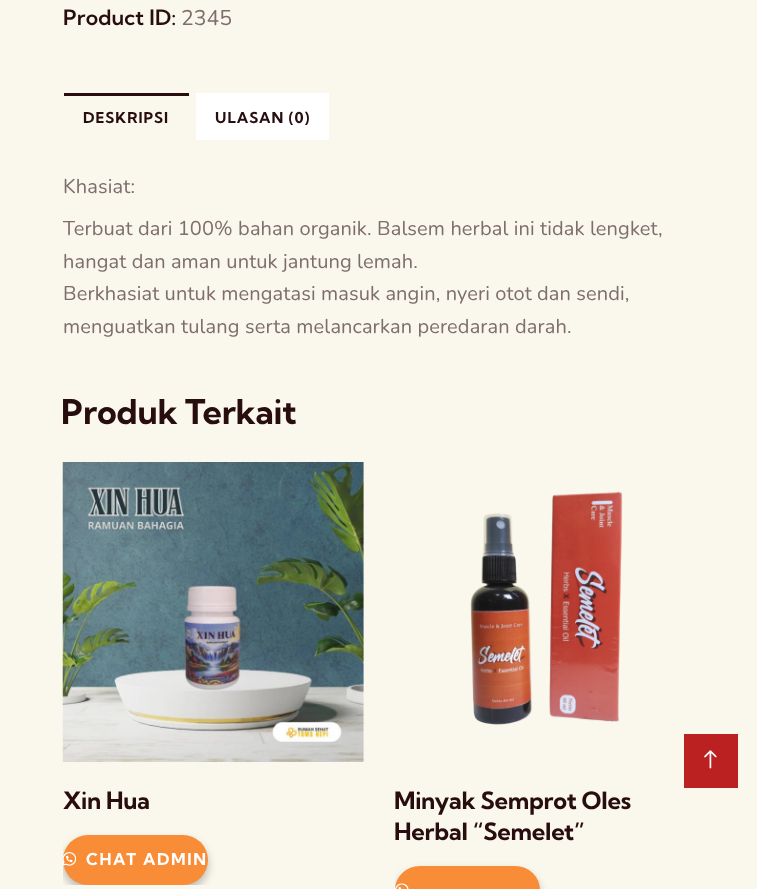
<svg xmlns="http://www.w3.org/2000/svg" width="757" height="889">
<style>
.a{font:600 21.25px Kumbh Sans;letter-spacing:0.12px;fill:#270d0d}
.b{font:21.25px Nunito;fill:#7d6d6d}
.c{font:bold 15px Kumbh Sans;letter-spacing:1px;fill:#270d0d}
.d{font:20px Nunito;letter-spacing:0.12px;fill:#7d6d6d}
.e{font:bold 34px Kumbh Sans;letter-spacing:-0.25px;fill:#270d0d}
.f{font:bold 23.75px Kumbh Sans;letter-spacing:-0.25px;fill:#270d0d}
.g{font:bold 16.25px Kumbh Sans;letter-spacing:1.6px;fill:#fff}
</style>
<defs>
<clipPath id="clip1"><path d="M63 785h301v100H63z"/></clipPath>
<clipPath id="clip2"><path d="M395 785h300v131H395z"/></clipPath>
</defs>
<rect width="100%" height="100%" fill="#faf7ed"/>
<path fill="#270d0d" d="M64 93h125v3H64z"/>
<path fill="#fff" d="M196 93h133v47H196z"/>
<image href="1.png" x="62" y="462" width="302" height="300"/>
<g clip-path="url(#clip1)">
<rect fill="#00000040" filter="blur(4.5px)" x="63" y="840" width="145" height="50" rx="25"/>
</g>
<rect fill="#f88c37" x="63" y="835" width="145" height="50" rx="25"/>
<image href="2.png" x="63" y="852" width="13" height="14"/>
<image href="3.png" x="470" y="491" width="153" height="234"/>
<g clip-path="url(#clip2)">
<rect fill="#00000040" filter="blur(4.5px)" x="395" y="871" width="145" height="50" rx="25"/>
</g>
<rect fill="#f88c37" x="395" y="866" width="145" height="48" rx="25"/>
<image href="4.png" x="395" y="883" width="14" height="6"/>
<path fill="#bc2122" d="M684 734h54v54H684z"/>
<image href="5.png" x="704" y="750" width="13" height="19"/>
<text class="a" x="63" y="25">Product ID:</text>
<text class="b" x="181" y="25">2345</text>
<text class="c" x="83" y="123">DESKRIPSI</text>
<text class="c" x="215" y="123">ULASAN (0)</text>
<text class="d" x="63" y="193">Khasiat:</text>
<text class="d" x="63" y="235">Terbuat dari 100% bahan organik. Balsem herbal ini tidak lengket,</text>
<text class="d" x="63" y="268">hangat dan aman untuk jantung lemah.</text>
<text class="d" x="63" y="300">Berkhasiat untuk mengatasi masuk angin, nyeri otot dan sendi,</text>
<text class="d" x="63" y="333">menguatkan tulang serta melancarkan peredaran darah.</text>
<text class="e" x="61" y="424">Produk Terkait</text>
<text class="f" x="63" y="809">Xin Hua</text>
<text class="g" x="86" y="865">CHAT ADMIN</text>
<text class="f" x="394" y="809">Minyak Semprot Oles</text>
<text class="f" x="394" y="840">Herbal “Semelet”</text>
</svg>
